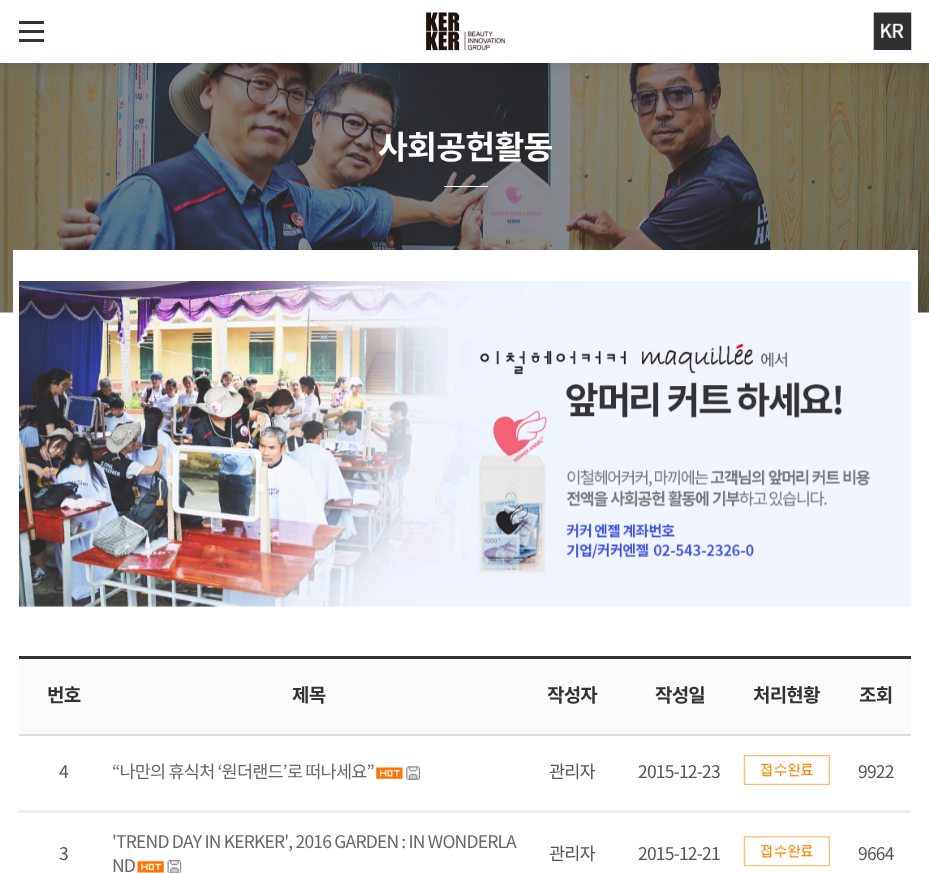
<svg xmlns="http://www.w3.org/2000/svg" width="929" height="873">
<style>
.a{font:bold 32.5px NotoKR;letter-spacing:-0.8px;fill:#fff}
.b{font:bold 19px NotoKR;letter-spacing:-0.8px;fill:#333}
.c{font:17.5px NotoKR;letter-spacing:-0.8px;fill:#555}
.d{font:17.5px NotoKR;letter-spacing:-0.8px;fill:#666}
</style>
<rect width="100%" height="100%" fill="#fff"/>
<image href="3.png" x="0" y="63" width="929" height="250"/>
<path fill="#0000001a" filter="blur(6px)" d="M0 3h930v62H0z"/>
<path fill="#fff" d="M0 0h929v63H0z"/>
<path fill="#333" d="M19 21h25v3H19z"/>
<path fill="#333" d="M19 30h25v3H19z"/>
<path fill="#333" d="M19 39h25v3H19z"/>
<image href="1.png" x="426" y="12" width="79" height="39"/>
<image href="2.png" x="873" y="12" width="39" height="38"/>
<path fill="#fff" d="M444 186h44v1H444z"/>
<path fill="#fff" d="M13 250h905v63H13z"/>
<image href="4.png" x="19" y="281" width="892" height="326"/>
<path fill="#333" d="M19 656h892v3H19z"/>
<path fill="#fbfbfb" d="M19 659h892v75H19z"/>
<path fill="#ddd" d="M19 734h892v2H19z"/>
<image href="5.png" x="376" y="767" width="27" height="12"/>
<image href="6.png" x="406" y="766" width="14" height="14"/>
<image href="7.png" x="743" y="755" width="87" height="30"/>
<path fill="#eee" d="M19 810h892v3H19z"/>
<image href="8.png" x="137" y="861" width="27" height="12"/>
<image href="9.png" x="167" y="860" width="15" height="13"/>
<image href="10.png" x="743" y="836" width="87" height="31"/>
<text class="a" x="378" y="159">사회공헌활동</text>
<text class="b" x="47" y="702">번호</text>
<text class="b" x="292" y="702">제목</text>
<text class="b" x="547" y="702">작성자</text>
<text class="b" x="655" y="702">작성일</text>
<text class="b" x="753" y="702">처리현황</text>
<text class="b" x="859" y="702">조회</text>
<text class="c" x="59" y="778">4</text>
<text class="d" x="112" y="778">“나만의 휴식처 ‘원더랜드’로 떠나세요”</text>
<text class="c" x="549" y="778">관리자</text>
<text class="c" x="638" y="778">2015-12-23</text>
<text class="c" x="858" y="778">9922</text>
<text class="c" x="59" y="860">3</text>
<text class="d" x="112" y="848">'TREND DAY IN KERKER', 2016 GARDEN : IN WONDERLA</text>
<text class="d" x="112" y="872">ND</text>
<text class="c" x="549" y="860">관리자</text>
<text class="c" x="638" y="860">2015-12-21</text>
<text class="c" x="858" y="860">9664</text>
</svg>
